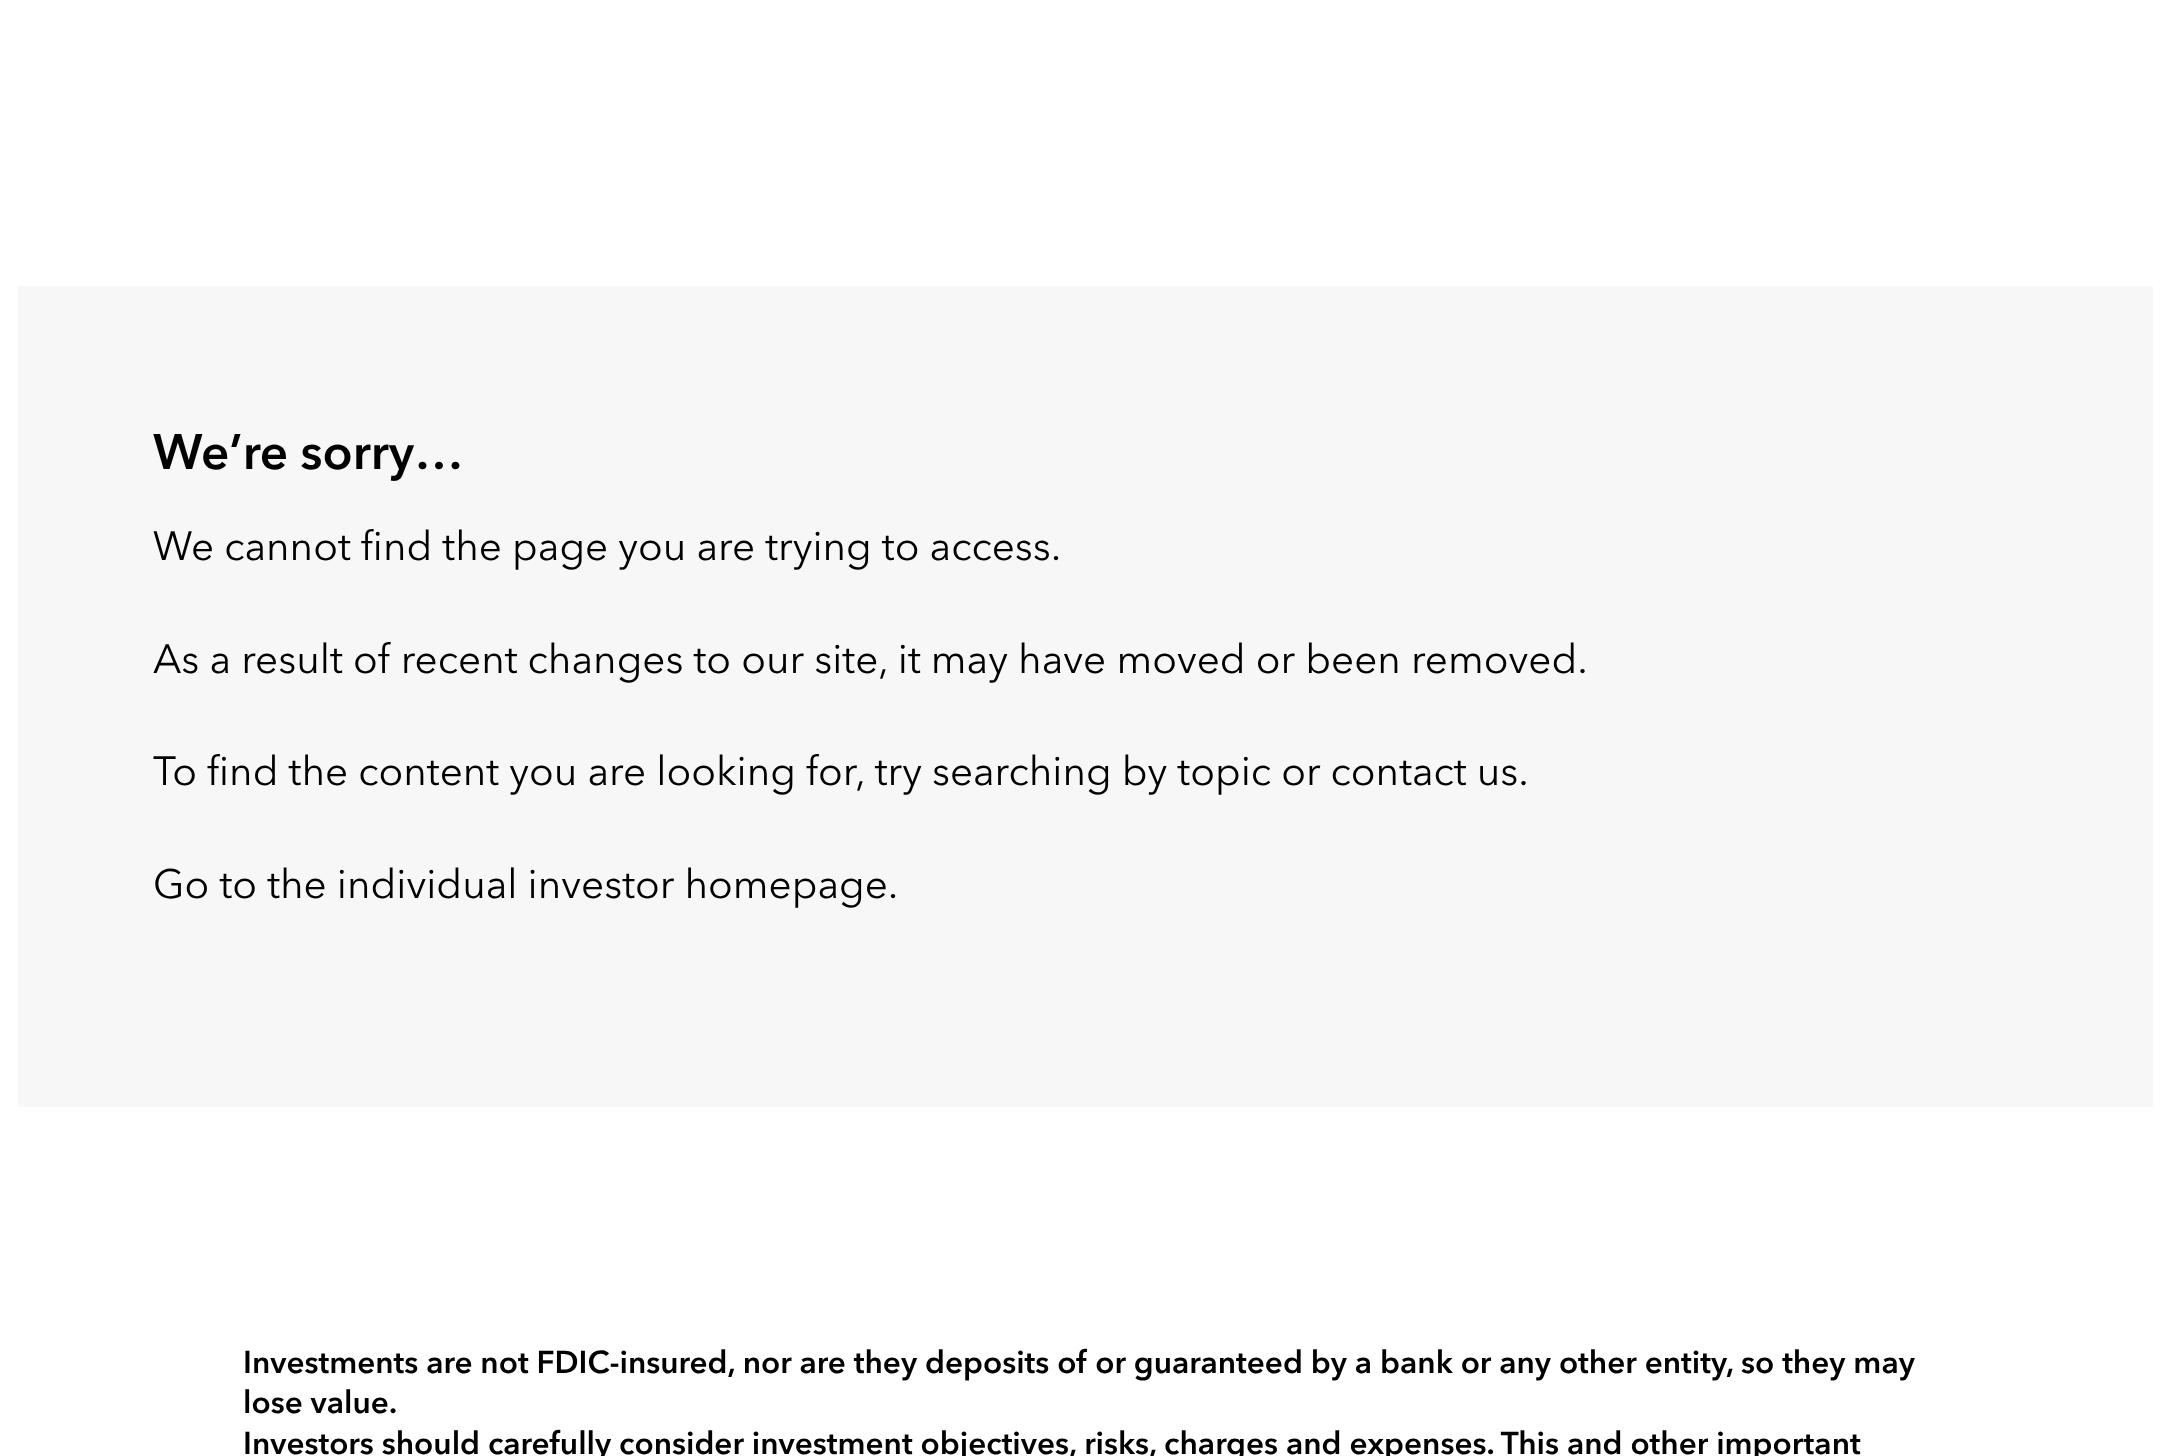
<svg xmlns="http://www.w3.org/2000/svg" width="2170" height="1456">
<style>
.a{font:600 49.5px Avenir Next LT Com;fill:#000}
.b{font:40.5px Avenir Next LT Com;fill:#000}
.c{font:600 31.5px Avenir Next LT Com;fill:#000}
</style>
<rect width="100%" height="100%" fill="#fff"/>
<path fill="#f7f7f7" d="M18 286h2135v821H18z"/>
<text class="a" x="153" y="469">We’re sorry…</text>
<text class="b" x="153" y="560">We cannot find the page you are trying to access.</text>
<text class="b" x="153" y="673">As a result of recent changes to our site, it may have moved or been removed.</text>
<text class="b" x="153" y="785">To find the content you are looking for, try searching by topic or contact us.</text>
<text class="b" x="153" y="898">Go to the individual investor homepage.</text>
<text class="c" x="243" y="1373">Investments are not FDIC-insured, nor are they deposits of or guaranteed by a bank or any other entity, so they may</text>
<text class="c" x="243" y="1413">lose value.</text>
<text class="c" x="243" y="1454">Investors should carefully consider investment objectives, risks, charges and expenses. This and other important</text>
</svg>
